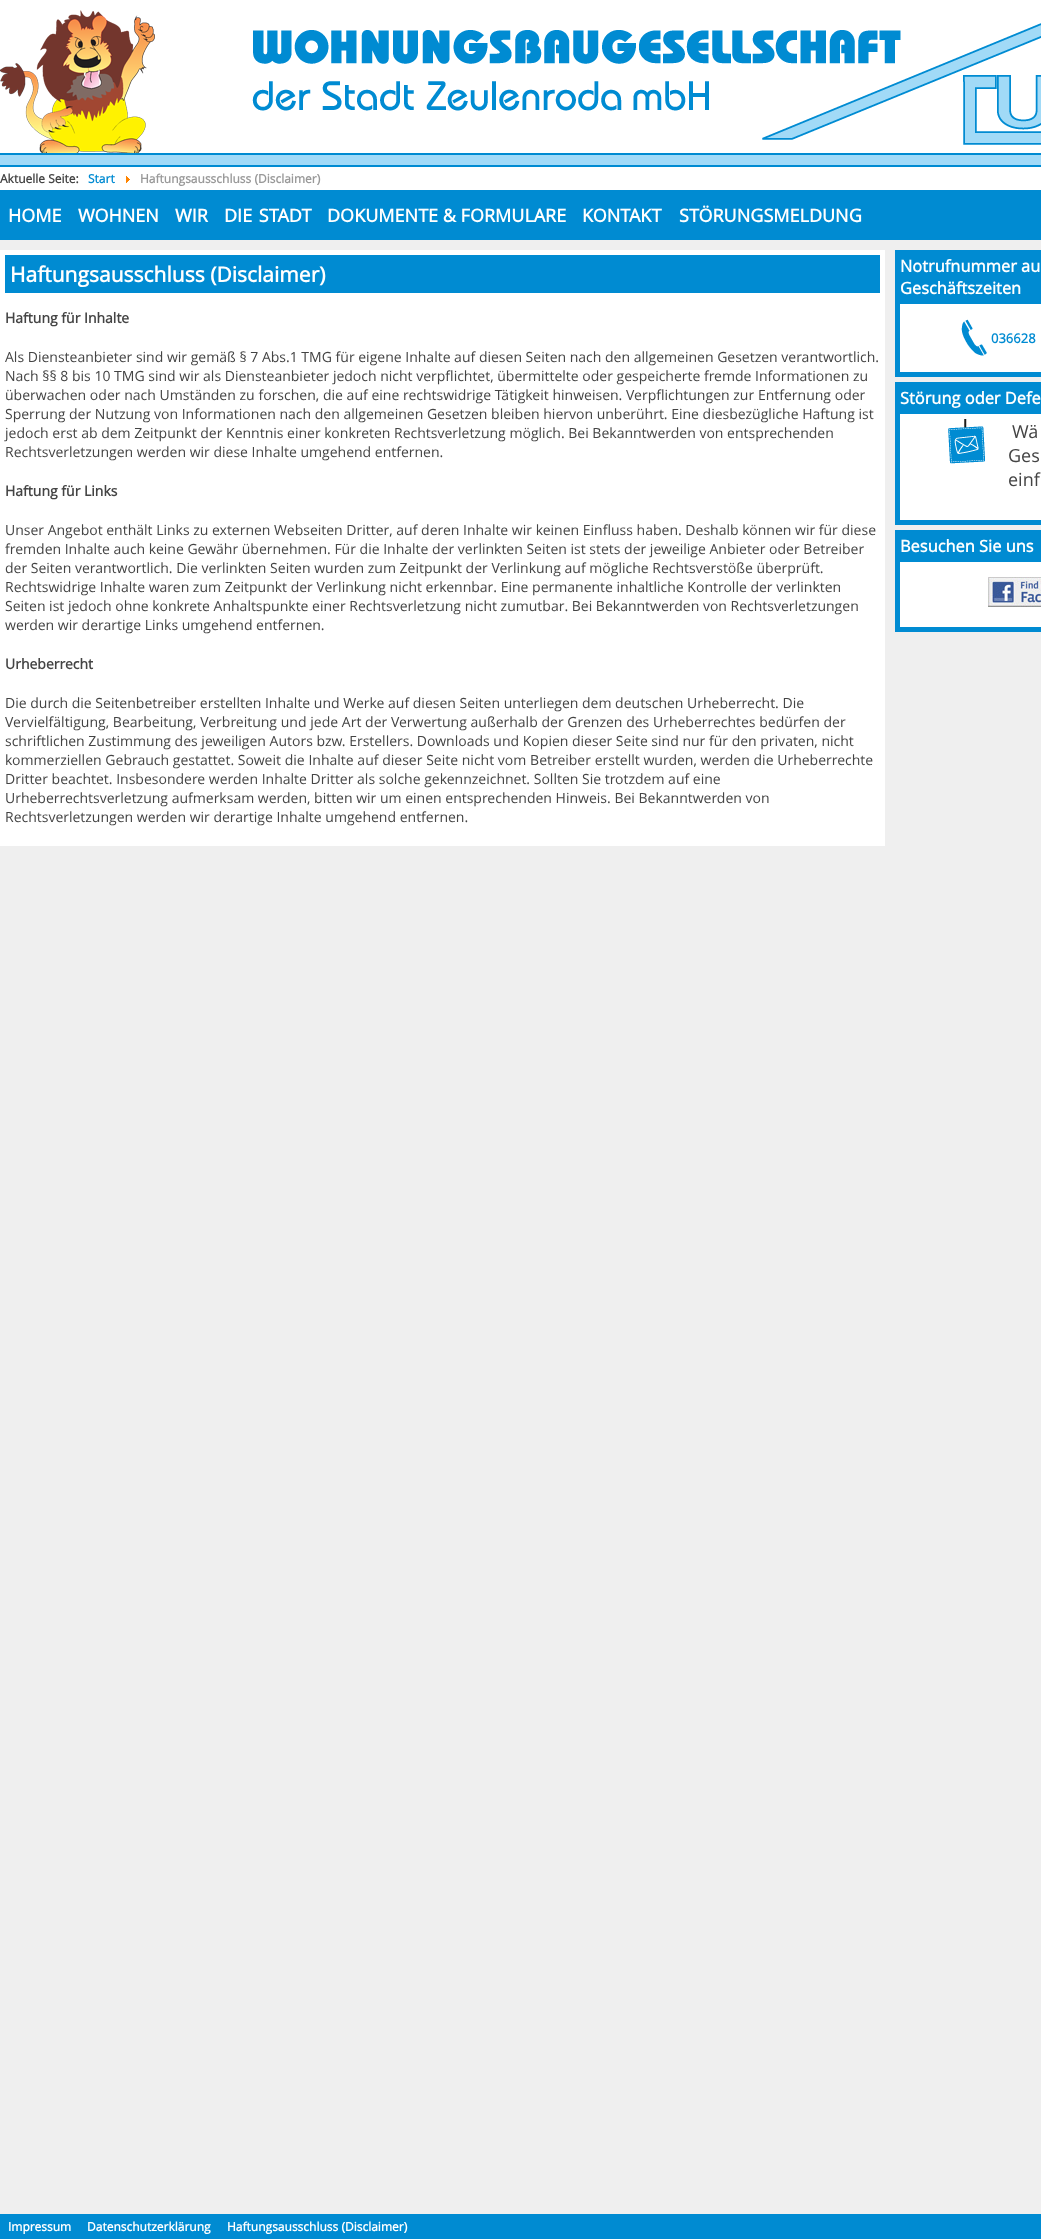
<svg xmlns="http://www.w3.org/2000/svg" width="1041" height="2239">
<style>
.a{font:bold 12px Open Sans;fill:#444}
.b{font:bold 12px Open Sans;fill:#008bd2}
.c{font:bold 12px Open Sans;fill:#999}
.d{font:bold 18px Open Sans;fill:#fff}
.e{font:bold 21px Open Sans;fill:#fff}
.f{font:bold 14px Open Sans;fill:#444}
.g{font:14px Open Sans;fill:#444}
.h{font:bold 16.4px Open Sans;fill:#fff}
.i{font:bold 13px Open Sans;fill:#008bd2}
.j{font:18px Open Sans;fill:#444}
.k{font:bold 12px Open Sans;fill:#fff}
</style>
<rect width="100%" height="100%" fill="#efefef"/>
<path fill="#fff" d="M0 0h1041v153H0z"/>
<image href="1.png" x="0" y="10" width="1041" height="143"/>
<path fill="#008bd2" d="M0 153h1041v2H0z"/>
<path fill="#a1daf8" d="M0 155h1041v10H0z"/>
<path fill="#008bd2" d="M0 165h1041v2H0z"/>
<path fill="#fff" d="M0 167h1041v23H0z"/>
<image href="2.png" x="126" y="176" width="4" height="7"/>
<path fill="#008bd2" d="M0 190h1041v50H0z"/>
<path fill="#fff" d="M0 250h885v596H0z"/>
<path fill="#008bd2" d="M5 255h875v38H5z"/>
<path fill="#008bd2" d="M895 250h146v127H895z"/>
<path fill="#fff" d="M900 304h141v68H900z"/>
<image href="3.png" x="961" y="319" width="26" height="37"/>
<path fill="#008bd2" d="M895 382h146v143H895z"/>
<path fill="#fff" d="M900 414h141v106H900z"/>
<image href="4.png" x="948" y="419" width="37" height="45"/>
<path fill="#008bd2" d="M895 530h146v102H895z"/>
<path fill="#fff" d="M900 562h141v65H900z"/>
<image href="5.png" x="988" y="577" width="53" height="30"/>
<path fill="#008bd2" d="M0 2214h1041v25H0z"/>
<text class="a" x="0" y="183">Aktuelle Seite:</text>
<text class="b" x="88" y="183">Start</text>
<text class="c" x="140" y="183">Haftungsausschluss (Disclaimer)</text>
<text class="d" x="8" y="222">HOME</text>
<text class="d" x="78" y="222">WOHNEN</text>
<text class="d" x="175" y="222">WIR</text>
<text class="d" x="224" y="222" word-spacing="2">DIE STADT</text>
<text class="d" x="327" y="222">DOKUMENTE &amp; FORMULARE</text>
<text class="d" x="582" y="222">KONTAKT</text>
<text class="d" x="679" y="222">STÖRUNGSMELDUNG</text>
<text class="e" x="10" y="282">Haftungsausschluss (Disclaimer)</text>
<text class="f" x="5" y="323">Haftung für Inhalte</text>
<text class="g" x="5" y="362">Als Diensteanbieter sind wir gemäß § 7 Abs.1 TMG für eigene Inhalte auf diesen Seiten nach den allgemeinen Gesetzen verantwortlich.</text>
<text class="g" x="5" y="381">Nach §§ 8 bis 10 TMG sind wir als Diensteanbieter jedoch nicht verpflichtet, übermittelte oder gespeicherte fremde Informationen zu</text>
<text class="g" x="5" y="400" word-spacing="0.1">überwachen oder nach Umständen zu forschen, die auf eine rechtswidrige Tätigkeit hinweisen. Verpflichtungen zur Entfernung oder</text>
<text class="g" x="5" y="419">Sperrung der Nutzung von Informationen nach den allgemeinen Gesetzen bleiben hiervon unberührt. Eine diesbezügliche Haftung ist</text>
<text class="g" x="5" y="438">jedoch erst ab dem Zeitpunkt der Kenntnis einer konkreten Rechtsverletzung möglich. Bei Bekanntwerden von entsprechenden</text>
<text class="g" x="5" y="457">Rechtsverletzungen werden wir diese Inhalte umgehend entfernen.</text>
<text class="f" x="5" y="496">Haftung für Links</text>
<text class="g" x="5" y="535">Unser Angebot enthält Links zu externen Webseiten Dritter, auf deren Inhalte wir keinen Einfluss haben. Deshalb können wir für diese</text>
<text class="g" x="5" y="554">fremden Inhalte auch keine Gewähr übernehmen. Für die Inhalte der verlinkten Seiten ist stets der jeweilige Anbieter oder Betreiber</text>
<text class="g" x="5" y="573">der Seiten verantwortlich. Die verlinkten Seiten wurden zum Zeitpunkt der Verlinkung auf mögliche Rechtsverstöße überprüft.</text>
<text class="g" x="5" y="592">Rechtswidrige Inhalte waren zum Zeitpunkt der Verlinkung nicht erkennbar. Eine permanente inhaltliche Kontrolle der verlinkten</text>
<text class="g" x="5" y="611">Seiten ist jedoch ohne konkrete Anhaltspunkte einer Rechtsverletzung nicht zumutbar. Bei Bekanntwerden von Rechtsverletzungen</text>
<text class="g" x="5" y="630">werden wir derartige Links umgehend entfernen.</text>
<text class="f" x="5" y="669">Urheberrecht</text>
<text class="g" x="5" y="708">Die durch die Seitenbetreiber erstellten Inhalte und Werke auf diesen Seiten unterliegen dem deutschen Urheberrecht. Die</text>
<text class="g" x="5" y="727" word-spacing="0.1">Vervielfältigung, Bearbeitung, Verbreitung und jede Art der Verwertung außerhalb der Grenzen des Urheberrechtes bedürfen der</text>
<text class="g" x="5" y="746">schriftlichen Zustimmung des jeweiligen Autors bzw. Erstellers. Downloads und Kopien dieser Seite sind nur für den privaten, nicht</text>
<text class="g" x="5" y="765" word-spacing="0.1">kommerziellen Gebrauch gestattet. Soweit die Inhalte auf dieser Seite nicht vom Betreiber erstellt wurden, werden die Urheberrechte</text>
<text class="g" x="5" y="784">Dritter beachtet. Insbesondere werden Inhalte Dritter als solche gekennzeichnet. Sollten Sie trotzdem auf eine</text>
<text class="g" x="5" y="803">Urheberrechtsverletzung aufmerksam werden, bitten wir um einen entsprechenden Hinweis. Bei Bekanntwerden von</text>
<text class="g" x="5" y="822">Rechtsverletzungen werden wir derartige Inhalte umgehend entfernen.</text>
<text class="h" x="900" y="272">Notrufnummer au</text>
<text class="h" x="900" y="294">Geschäftszeiten</text>
<text class="i" x="991" y="343">036628</text>
<text class="h" x="900" y="404">Störung oder Defe</text>
<text class="j" x="1012" y="438" word-spacing="1">Wä</text>
<text class="j" x="1008" y="462">Ges</text>
<text class="j" x="1008" y="486">einf</text>
<text class="h" x="900" y="552">Besuchen Sie uns</text>
<text class="k" x="8" y="2231">Impressum</text>
<text class="k" x="87" y="2231">Datenschutzerklärung</text>
<text class="k" x="227" y="2231">Haftungsausschluss (Disclaimer)</text>
</svg>
